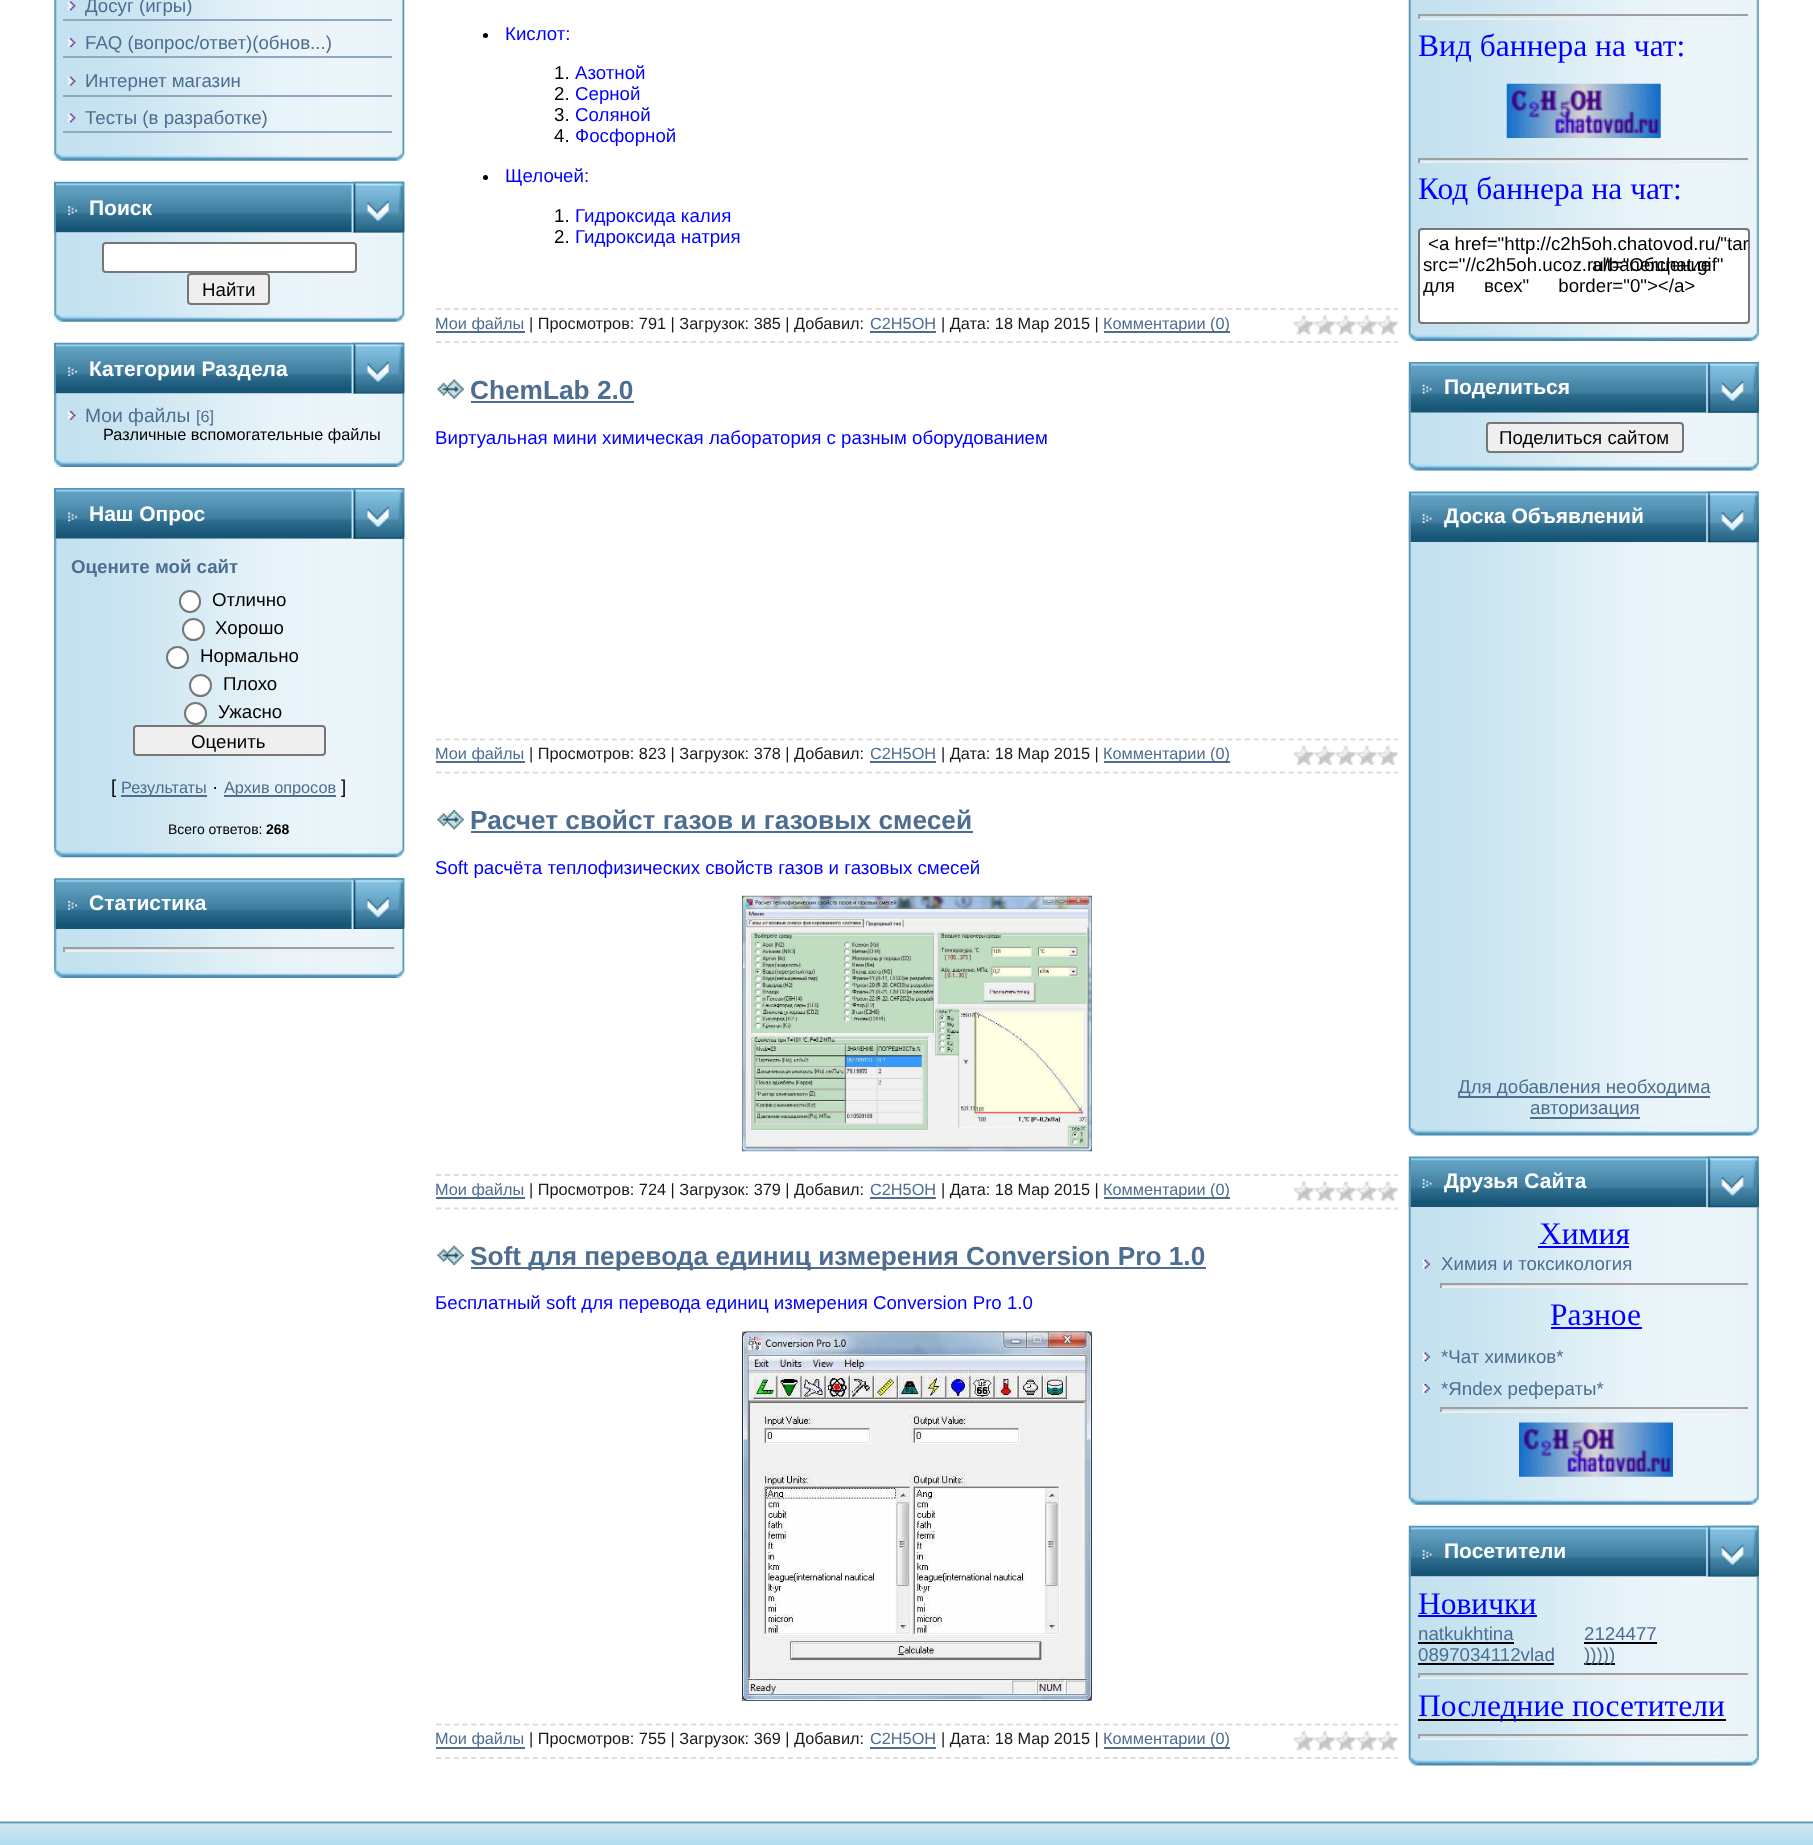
<svg xmlns="http://www.w3.org/2000/svg" width="1813" height="1845">
<style>
.a{font:18.7px Liberation Sans;fill:#4d6d91}
.b{font:bold 21px Liberation Sans;fill:#fff}
.c{font:18.7px Liberation Sans;fill:#000}
.d{font:19.25px Liberation Sans;fill:#4d6d91}
.e{font:16.3px Liberation Sans;fill:#4d6d91}
.f{font:16.3px Liberation Sans;fill:#000}
.g{font:bold 18.7px Liberation Sans;fill:#4d6d91}
.h{font:14px Liberation Sans;fill:#000}
.i{font:bold 14px Liberation Sans;fill:#000}
.j{font:18.7px Liberation Sans;fill:#00f}
.k{font:16.3px Liberation Sans;fill:#1a1a1a}
.l{font:bold 26.25px Liberation Sans;fill:#4d6d91}
.m{font:31.5px Liberation Serif;fill:#00f}
</style>
<rect width="100%" height="100%" fill="#fff"/>
<image href="1.png" x="54" y="0" width="351" height="152"/>
<image href="2.png" x="68" y="1" width="8" height="10"/>
<path fill="#8ea8c4" d="M63 19h329v2H63z"/>
<image href="3.png" x="68" y="38" width="8" height="9"/>
<path fill="#8ea8c4" d="M63 56h329v2H63z"/>
<image href="4.png" x="68" y="76" width="8" height="10"/>
<path fill="#8ea8c4" d="M63 95h329v2H63z"/>
<image href="2.png" x="68" y="113" width="8" height="10"/>
<path fill="#8ea8c4" d="M63 131h329v2H63z"/>
<image href="5.png" x="54" y="152" width="351" height="9"/>
<image href="6.png" x="54" y="181" width="298" height="52"/>
<path fill="#5694b5" d="M54 182h2v51H54z"/>
<image href="7.png" x="68" y="206" width="9" height="9"/>
<image href="8.png" x="351" y="181" width="54" height="52"/>
<image href="10.png" x="54" y="232" width="351" height="81"/>
<image href="9.png" x="351" y="181" width="54" height="52"/>
<rect fill="#fff" stroke="#767676" stroke-width="2" x="103" y="243" width="253" height="29" rx="3"/>
<rect fill="#efefef" stroke="#767676" stroke-width="2" x="188" y="274" width="81" height="30" rx="3"/>
<image href="5.png" x="54" y="313" width="351" height="9"/>
<image href="6.png" x="54" y="342" width="298" height="52"/>
<path fill="#5694b5" d="M54 343h2v51H54z"/>
<image href="7.png" x="68" y="367" width="9" height="9"/>
<image href="8.png" x="351" y="342" width="54" height="52"/>
<path fill="#c3e1ef" d="M54 394h350v65H54z"/>
<image href="11.png" x="54" y="393" width="351" height="66"/>
<image href="9.png" x="351" y="342" width="54" height="52"/>
<image href="12.png" x="68" y="411" width="8" height="9"/>
<image href="13.png" x="54" y="458" width="351" height="9"/>
<image href="14.png" x="56" y="488" width="296" height="51"/>
<path fill="#5694b5" d="M54 488h2v51H54z"/>
<image href="15.png" x="68" y="512" width="9" height="10"/>
<image href="16.png" x="351" y="488" width="54" height="51"/>
<path fill="#c3e1ef" d="M54 539h350v310H54z"/>
<image href="18.png" x="54" y="538" width="351" height="311"/>
<image href="17.png" x="351" y="488" width="54" height="51"/>
<rect fill="#fff" stroke="#767676" stroke-width="2" x="180" y="591" width="20" height="21" rx="10"/>
<circle fill="#fff" stroke="#767676" stroke-width="2" cx="193.5" cy="629.5" r="10.5"/>
<circle fill="#fff" stroke="#767676" stroke-width="2" cx="177.5" cy="657.5" r="10.5"/>
<circle fill="#fff" stroke="#767676" stroke-width="2" cx="200.5" cy="685.5" r="10.5"/>
<circle fill="#fff" stroke="#767676" stroke-width="2" cx="195.5" cy="713.5" r="10.5"/>
<rect fill="#efefef" stroke="#767676" stroke-width="2" x="134" y="726" width="191" height="29" rx="3"/>
<path fill="#4d6d91" d="M121 795h86v2H121z"/>
<path fill="#4d6d91" d="M224 795h112v2H224z"/>
<image href="19.png" x="54" y="848" width="351" height="10"/>
<image href="20.png" x="54" y="878" width="298" height="51"/>
<path fill="#5694b5" d="M54 879h2v50H54z"/>
<image href="21.png" x="68" y="901" width="9" height="9"/>
<image href="22.png" x="351" y="878" width="54" height="51"/>
<image href="23.png" x="351" y="878" width="54" height="51"/>
<path fill="#c3e1ef" d="M54 929h350v41H54z"/>
<image href="24.png" x="54" y="929" width="351" height="41"/>
<path fill="#9f9f9f" d="M63 947h333v2H63z"/>
<path fill="#eee" d="M394 947h2v5H394z"/>
<path fill="#eee" d="M63 950h333v2H63z"/>
<path fill="#9f9f9f" d="M63 947h2v5H63z"/>
<image href="13.png" x="54" y="969" width="351" height="9"/>
<circle fill="#000" cx="485.5" cy="35.5" r="2.5"/>
<circle fill="#000" cx="485.5" cy="177.5" r="2.5"/>
<path fill="none" stroke="#ddd" stroke-width="1.8" stroke-dasharray="5.25 3.54" d="M436 309h962"/>
<path fill="none" stroke="#ddd" stroke-width="1.8" stroke-dasharray="5.25 3.54" d="M436 342h962"/>
<path fill="#4d6d91" d="M436 331h89v2H436z"/>
<path fill="#4d6d91" d="M870 331h66v2H870z"/>
<path fill="#4d6d91" d="M1104 331h126v2H1104z"/>
<image href="25.png" x="1293" y="315" width="106" height="21"/>
<image href="26.png" x="437" y="379" width="27" height="20"/>
<path fill="#4d6d91" d="M471 401h163v2H471z"/>
<path fill="none" stroke="#ddd" stroke-width="1.8" stroke-dasharray="5.25 3.54" d="M436 739.5h962"/>
<path fill="none" stroke="#ddd" stroke-width="1.8" stroke-dasharray="5.25 3.54" d="M436 772.5h962"/>
<path fill="#4d6d91" d="M436 761h89v2H436z"/>
<path fill="#4d6d91" d="M870 761h66v2H870z"/>
<path fill="#4d6d91" d="M1104 761h126v2H1104z"/>
<image href="27.png" x="1293" y="745" width="106" height="22"/>
<image href="28.png" x="437" y="810" width="27" height="20"/>
<path fill="#4d6d91" d="M471 831h502v2H471z"/>
<image href="29.png" x="742" y="895" width="350" height="257"/>
<path fill="none" stroke="#ddd" stroke-width="1.8" stroke-dasharray="5.25 3.54" d="M436 1175h962"/>
<path fill="none" stroke="#ddd" stroke-width="1.8" stroke-dasharray="5.25 3.54" d="M436 1208.5h962"/>
<path fill="#4d6d91" d="M436 1197h89v2H436z"/>
<path fill="#4d6d91" d="M870 1197h66v2H870z"/>
<path fill="#4d6d91" d="M1104 1197h126v2H1104z"/>
<image href="30.png" x="1293" y="1181" width="106" height="21"/>
<image href="31.png" x="437" y="1245" width="27" height="20"/>
<path fill="#4d6d91" d="M471 1267h735v2H471z"/>
<image href="32.png" x="742" y="1331" width="350" height="370"/>
<path fill="none" stroke="#ddd" stroke-width="1.8" stroke-dasharray="5.25 3.54" d="M436 1724.5h962"/>
<path fill="none" stroke="#ddd" stroke-width="1.8" stroke-dasharray="5.25 3.54" d="M436 1758h962"/>
<path fill="#4d6d91" d="M436 1747h89v2H436z"/>
<path fill="#4d6d91" d="M870 1747h66v2H870z"/>
<path fill="#4d6d91" d="M1104 1747h126v2H1104z"/>
<image href="33.png" x="1293" y="1730" width="106" height="22"/>
<path fill="#c3e1ef" d="M1409 0h350v333H1409z"/>
<image href="34.png" x="1408" y="0" width="351" height="333"/>
<path fill="#9f9f9f" d="M1418 14h332v2H1418z"/>
<path fill="#eee" d="M1748 14h2v5H1748z"/>
<path fill="#eee" d="M1418 18h332v2H1418z"/>
<path fill="#9f9f9f" d="M1418 14h2v5H1418z"/>
<image href="35.png" x="1506" y="83" width="155" height="55"/>
<path fill="#9f9f9f" d="M1418 158h332v2H1418z"/>
<path fill="#eee" d="M1748 158h2v5H1748z"/>
<path fill="#eee" d="M1418 161h332v2H1418z"/>
<path fill="#9f9f9f" d="M1418 158h2v5H1418z"/>
<rect fill="#fff" stroke="#767676" stroke-width="2" x="1419" y="229" width="330" height="94" rx="3"/>
<image href="36.png" x="1408" y="332" width="351" height="9"/>
<image href="37.png" x="1408" y="362" width="299" height="51"/>
<path fill="#5694b5" d="M1409 362h2v51H1409z"/>
<image href="38.png" x="1422" y="384" width="10" height="10"/>
<image href="39.png" x="1706" y="362" width="53" height="51"/>
<path fill="#c3e1ef" d="M1409 413h350v49H1409z"/>
<image href="41.png" x="1408" y="412" width="351" height="50"/>
<image href="40.png" x="1706" y="362" width="53" height="51"/>
<rect fill="#efefef" stroke="#767676" stroke-width="2" x="1487" y="423" width="196" height="29" rx="3"/>
<image href="42.png" x="1408" y="461" width="351" height="10"/>
<image href="43.png" x="1408" y="491" width="299" height="52"/>
<path fill="#5694b5" d="M1409 492h2v51H1409z"/>
<image href="44.png" x="1422" y="514" width="10" height="9"/>
<image href="45.png" x="1706" y="491" width="53" height="52"/>
<path fill="#c3e1ef" d="M1409 543h350v584H1409z"/>
<image href="47.png" x="1408" y="542" width="351" height="585"/>
<image href="46.png" x="1706" y="491" width="53" height="52"/>
<path fill="#4d6d91" d="M1458 1096h252v2H1458z"/>
<path fill="#4d6d91" d="M1530 1117h110v2H1530z"/>
<image href="42.png" x="1408" y="1126" width="351" height="10"/>
<image href="43.png" x="1408" y="1156" width="299" height="52"/>
<path fill="#5694b5" d="M1409 1157h2v51H1409z"/>
<image href="44.png" x="1422" y="1179" width="10" height="9"/>
<image href="45.png" x="1706" y="1156" width="53" height="52"/>
<image href="48.png" x="1408" y="1207" width="351" height="289"/>
<image href="46.png" x="1706" y="1156" width="53" height="52"/>
<path fill="#00f" d="M1538 1246h91v2H1538z"/>
<image href="49.png" x="1422" y="1259" width="8" height="10"/>
<path fill="#9f9f9f" d="M1440 1283h310v2H1440z"/>
<path fill="#eee" d="M1748 1283h2v5H1748z"/>
<path fill="#eee" d="M1440 1286h310v2H1440z"/>
<path fill="#9f9f9f" d="M1440 1283h2v5H1440z"/>
<path fill="#00f" d="M1551 1327h91v2H1551z"/>
<image href="50.png" x="1422" y="1352" width="8" height="10"/>
<image href="51.png" x="1422" y="1384" width="8" height="9"/>
<path fill="#9f9f9f" d="M1440 1407h310v2H1440z"/>
<path fill="#eee" d="M1748 1407h2v5H1748z"/>
<path fill="#eee" d="M1440 1411h310v2H1440z"/>
<path fill="#9f9f9f" d="M1440 1407h2v5H1440z"/>
<image href="52.png" x="1519" y="1422" width="154" height="55"/>
<image href="53.png" x="1408" y="1496" width="351" height="9"/>
<image href="54.png" x="1408" y="1525" width="299" height="52"/>
<path fill="#5694b5" d="M1409 1526h2v51H1409z"/>
<image href="55.png" x="1422" y="1550" width="10" height="9"/>
<image href="56.png" x="1706" y="1525" width="53" height="52"/>
<path fill="#c3e1ef" d="M1409 1577h350v180H1409z"/>
<image href="58.png" x="1408" y="1576" width="351" height="181"/>
<image href="57.png" x="1706" y="1525" width="53" height="52"/>
<path fill="#00f" d="M1418 1615h119v2H1418z"/>
<path fill="#000" d="M1418 1642h96v2H1418z"/>
<path fill="#000" d="M1584 1642h73v2H1584z"/>
<path fill="#000" d="M1418 1663h136v2H1418z"/>
<path fill="#000" d="M1584 1663h31v2H1584z"/>
<path fill="#9f9f9f" d="M1418 1673h332v2H1418z"/>
<path fill="#eee" d="M1748 1673h2v5H1748z"/>
<path fill="#eee" d="M1418 1677h332v2H1418z"/>
<path fill="#9f9f9f" d="M1418 1673h2v5H1418z"/>
<path fill="#000" d="M1418 1719h308v2H1418z"/>
<path fill="#9f9f9f" d="M1418 1734h332v2H1418z"/>
<path fill="#eee" d="M1748 1734h2v5H1748z"/>
<path fill="#eee" d="M1418 1738h332v2H1418z"/>
<path fill="#9f9f9f" d="M1418 1734h2v5H1418z"/>
<image href="42.png" x="1408" y="1756" width="351" height="10"/>
<image href="59.png" x="0" y="1821" width="1813" height="24"/>
<text class="a" x="85" y="12">Досуг (игры)</text>
<text class="a" x="85" y="49">FAQ (вопрос/ответ)(обнов...)</text>
<text class="a" x="85" y="87">Интернет магазин</text>
<text class="a" x="85" y="124">Тесты (в разработке)</text>
<text class="b" x="89" y="215">Поиск</text>
<text class="c" x="202" y="296">Найти</text>
<text class="b" x="89" y="376">Категории Раздела</text>
<text class="d" x="85" y="422">Мои файлы</text>
<text class="e" x="196" y="422">[6]</text>
<text class="f" x="103" y="440">Различные вспомогательные файлы</text>
<text class="b" x="89" y="521">Наш Опрос</text>
<text class="g" x="71" y="573">Оцените мой сайт</text>
<text class="c" x="212" y="606">Отлично</text>
<text class="c" x="215" y="634">Хорошо</text>
<text class="c" x="200" y="662">Нормально</text>
<text class="c" x="223" y="690">Плохо</text>
<text class="c" x="218" y="718">Ужасно</text>
<text class="c" x="191" y="748">Оценить</text>
<text class="c" x="111" y="793">[</text>
<text class="e" x="121" y="793">Результаты</text>
<text class="c" x="212" y="793">·</text>
<text class="e" x="224" y="793">Архив опросов</text>
<text class="c" x="341" y="793">]</text>
<text class="h" x="168" y="834">Всего ответов:</text>
<text class="i" x="266" y="834">268</text>
<text class="b" x="89" y="910">Статистика</text>
<text class="j" x="505" y="40">Кислот:</text>
<text class="c" x="554" y="79">1.</text>
<text class="j" x="575" y="79">Азотной</text>
<text class="c" x="554" y="100">2.</text>
<text class="j" x="575" y="100">Серной</text>
<text class="c" x="554" y="121">3.</text>
<text class="j" x="575" y="121">Соляной</text>
<text class="c" x="554" y="142">4.</text>
<text class="j" x="575" y="142">Фосфорной</text>
<text class="j" x="505" y="182">Щелочей:</text>
<text class="c" x="554" y="222">1.</text>
<text class="j" x="575" y="222">Гидроксида калия</text>
<text class="c" x="554" y="243">2.</text>
<text class="j" x="575" y="243">Гидроксида натрия</text>
<text class="e" x="435" y="329">Мои файлы</text>
<text class="k" x="529" y="329">| Просмотров: 791 | Загрузок: 385 | Добавил:</text>
<text class="e" x="870" y="329">C2H5OH</text>
<text class="k" x="941" y="329">| Дата: 18 Мар 2015 |</text>
<text class="e" x="1103" y="329">Комментарии (0)</text>
<text class="l" x="470" y="399">ChemLab 2.0</text>
<text class="j" x="435" y="444">Виртуальная мини химическая лаборатория с разным оборудованием</text>
<text class="e" x="435" y="759">Мои файлы</text>
<text class="k" x="529" y="759">| Просмотров: 823 | Загрузок: 378 | Добавил:</text>
<text class="e" x="870" y="759">C2H5OH</text>
<text class="k" x="941" y="759">| Дата: 18 Мар 2015 |</text>
<text class="e" x="1103" y="759">Комментарии (0)</text>
<text class="l" x="470" y="829">Расчет свойст газов и газовых смесей</text>
<text class="j" x="435" y="874">Soft расчёта теплофизических свойств газов и газовых смесей</text>
<text class="e" x="435" y="1195">Мои файлы</text>
<text class="k" x="529" y="1195">| Просмотров: 724 | Загрузок: 379 | Добавил:</text>
<text class="e" x="870" y="1195">C2H5OH</text>
<text class="k" x="941" y="1195">| Дата: 18 Мар 2015 |</text>
<text class="e" x="1103" y="1195">Комментарии (0)</text>
<text class="l" x="470" y="1265">Soft для перевода единиц измерения Conversion Pro 1.0</text>
<text class="j" x="435" y="1309">Бесплатный soft для перевода единиц измерения Conversion Pro 1.0</text>
<text class="e" x="435" y="1744">Мои файлы</text>
<text class="k" x="529" y="1744">| Просмотров: 755 | Загрузок: 369 | Добавил:</text>
<text class="e" x="870" y="1744">C2H5OH</text>
<text class="k" x="941" y="1744">| Дата: 18 Мар 2015 |</text>
<text class="e" x="1103" y="1744">Комментарии (0)</text>
<text class="m" x="1418" y="56">Вид баннера на чат:</text>
<text class="m" x="1418" y="199">Код баннера на чат:</text>
<text class="c" x="1428" y="250">&lt;a href="http://c2h5oh.chatovod.ru/"tar</text>
<text class="c" x="1423" y="271">src="//c2h5oh.ucoz.ru/banerchat.gif"</text>
<text class="c" x="1592" y="271">alt="Общение</text>
<text class="c" x="1423" y="292" word-spacing="24">для всех" border="0"&gt;&lt;/a&gt;</text>
<text class="b" x="1444" y="394">Поделиться</text>
<text class="c" x="1499" y="444">Поделиться сайтом</text>
<text class="b" x="1444" y="523">Доска Объявлений</text>
<text class="a" x="1458" y="1093">Для добавления необходима</text>
<text class="a" x="1530" y="1114">авторизация</text>
<text class="b" x="1444" y="1188">Друзья Сайта</text>
<text class="m" x="1539" y="1244">Химия</text>
<text class="a" x="1441" y="1270">Химия и токсикология</text>
<text class="m" x="1550" y="1325">Разное</text>
<text class="a" x="1441" y="1363">*Чат химиков*</text>
<text class="a" x="1441" y="1395">*Яndex рефераты*</text>
<text class="b" x="1444" y="1558">Посетители</text>
<text class="m" x="1418" y="1614">Новички</text>
<text class="a" x="1418" y="1640">natkukhtina</text>
<text class="a" x="1584" y="1640">2124477</text>
<text class="a" x="1418" y="1661">0897034112vlad</text>
<text class="a" x="1584" y="1661">)))))</text>
<text class="m" x="1418" y="1716">Последние посетители</text>
</svg>
